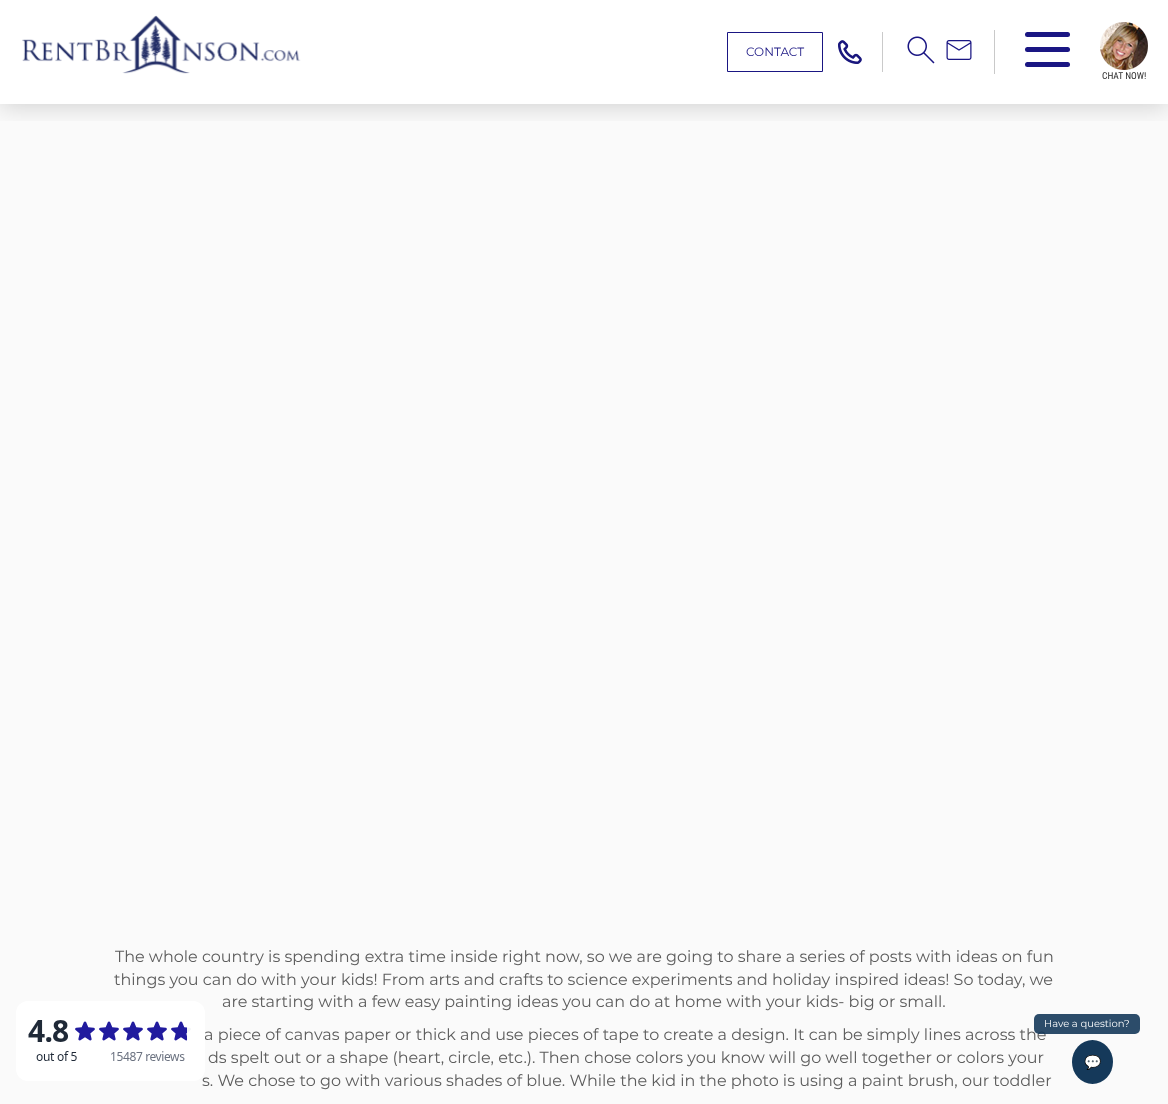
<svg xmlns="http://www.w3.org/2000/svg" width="1168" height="1104">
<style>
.a{font:100 12px Montserrat;fill:#1a1683}
.b{font:9.5px Roboto Condensed;fill:#2a2a2a}
.c{font:100 16px Montserrat;fill:#5d5d5d}
.d{font:100 10px Montserrat;fill:#fff}
.e{font:14px Noto Color Emoji;fill:#fff}
</style>
<defs>
<clipPath id="clip1"><path d="M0 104h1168v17H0z"/></clipPath>
</defs>
<rect width="100%" height="100%" fill="#fafafa"/>
<path fill="#fff" d="M0 0h1168v104H0z"/>
<g clip-path="url(#clip1)">
<path fill="#00000029" filter="blur(12.5px)" d="M0 3h1168v104H0z"/>
</g>
<image href="1.png" x="22" y="15" width="279" height="59"/>
<path fill="none" stroke="#1a1683" d="M727.5 32.5h95v39H727.5z"/>
<image href="2.png" x="838" y="40" width="24" height="24"/>
<path fill="#cacaca" d="M882 32h1v40H882z"/>
<image href="3.png" x="907" y="36" width="28" height="28"/>
<path fill="#c9c9c9" d="M994 30h1v44H994z"/>
<image href="4.png" x="946" y="40" width="26" height="20"/>
<rect fill="#1a1683" x="1025" y="32" width="45" height="5" rx="2.5"/>
<rect fill="#1a1683" x="1025" y="47" width="45" height="5" rx="2.5"/>
<rect fill="#1a1683" x="1025" y="62" width="45" height="5" rx="2.5"/>
<image href="5.png" x="1100" y="22" width="48" height="48"/>
<ellipse fill="#15395a" cx="1092.5" cy="1062" rx="20.5" ry="22"/>
<text class="a" x="746" y="56">CONTACT</text>
<text class="b" x="1102" y="79">CHAT NOW!</text>
<text class="c" x="115" y="962">The whole country is spending extra time inside right now, so we are going to share a series of posts with ideas on fun</text>
<text class="c" x="114" y="985">things you can do with your kids! From arts and crafts to science experiments and holiday inspired ideas! So today, we</text>
<text class="c" x="222" y="1007">are starting with a few easy painting ideas you can do at home with your kids- big or small.</text>
<text class="c" x="204" y="1040">a piece of canvas paper or thick and use pieces of tape to create a design. It can be simply lines across the</text>
<text class="c" x="208" y="1063">ds spelt out or a shape (heart, circle, etc.). Then chose colors you know will go well together or colors your</text>
<text class="c" x="202" y="1086">s. We chose to go with various shades of blue. While the kid in the photo is using a paint brush, our toddler</text>
<image href="6.png" x="16" y="1001" width="189" height="80"/>
<rect fill="#15395ae6" x="1034" y="1014" width="106" height="20" rx="5"/>
<text class="d" x="1044" y="1027">Have a question?</text>
<text class="e" x="1084" y="1067">💬</text>
</svg>
